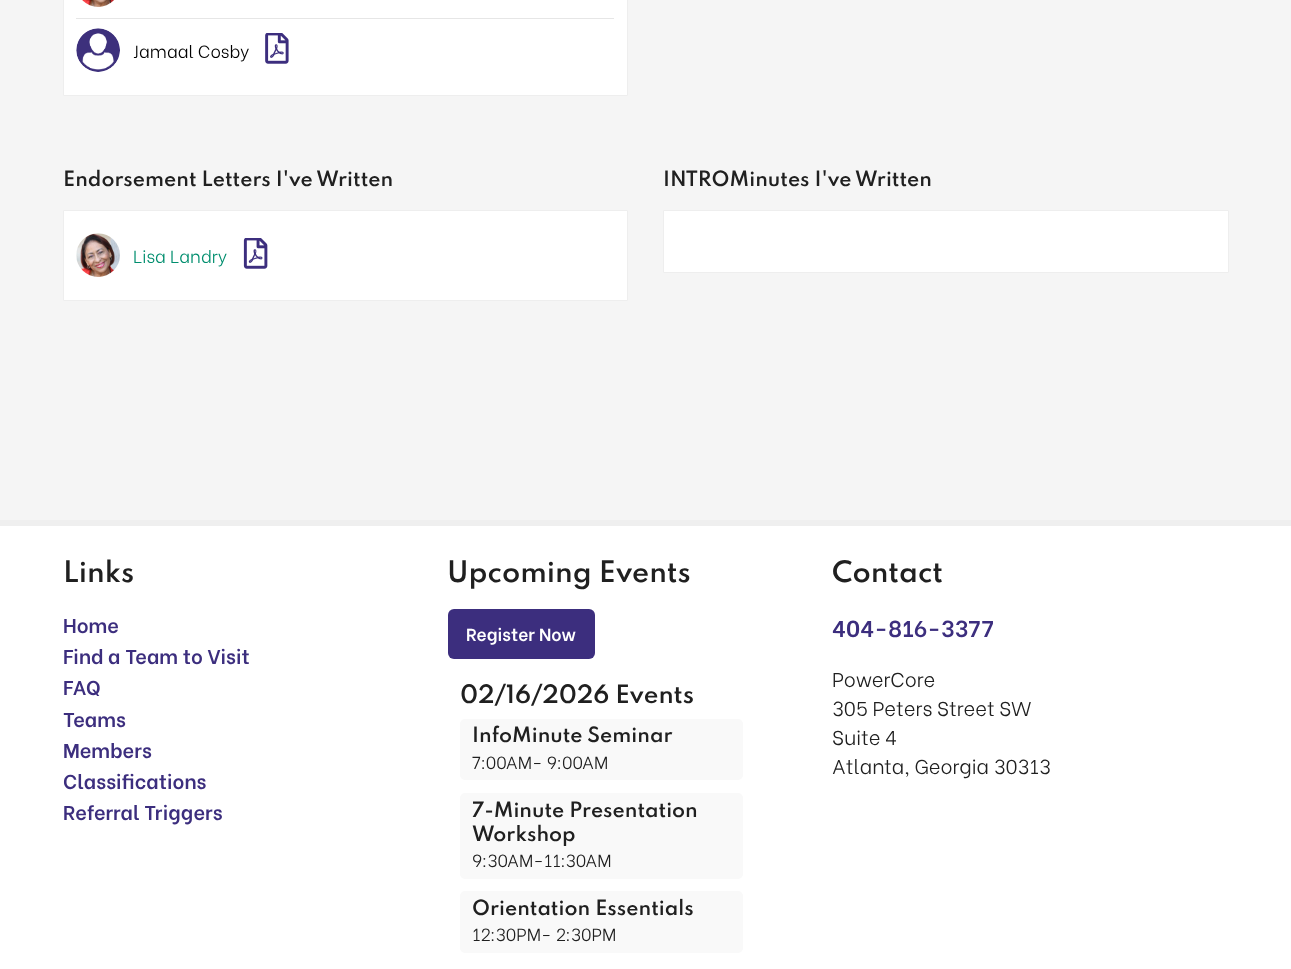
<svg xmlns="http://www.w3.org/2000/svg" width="1291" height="969">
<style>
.a{font:300 17.5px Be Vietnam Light;fill:#000}
.b{font:600 18.75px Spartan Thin;fill:#202020}
.c{font:300 17.5px Be Vietnam Light;fill:#008e6e}
.d{font:600 26.25px Spartan Thin;fill:#202020}
.e{font:600 20.1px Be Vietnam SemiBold;fill:#3c2e7e}
.f{font:600 17.5px Be Vietnam SemiBold;fill:#fff}
.g{font:600 22.5px Spartan Thin;fill:#202020}
.h{font:300 17.5px Be Vietnam Light;fill:#202020}
.i{font:600 23px Be Vietnam SemiBold;fill:#3c2e7e}
.j{font:300 20.1px Be Vietnam Light;fill:#202020}
</style>
<rect width="100%" height="100%" fill="#f5f5f5"/>
<path fill="#fff" stroke="#eee" d="M63.5 -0.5h564v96H63.5z"/>
<image href="1.png" x="82" y="0" width="32" height="7"/>
<path fill="#e6e6e6" d="M76 18h538v1H76z"/>
<image href="2.png" x="76" y="28" width="44" height="44"/>
<image href="3.png" x="265" y="33" width="24" height="31"/>
<path fill="#fff" stroke="#eee" d="M63.5 210.5h564v90H63.5z"/>
<image href="4.png" x="76" y="233" width="44" height="44"/>
<image href="5.png" x="243" y="238" width="25" height="31"/>
<path fill="#fff" stroke="#eee" d="M663.5 210.5h565v62H663.5z"/>
<path fill="#fff" d="M0 526h1291v443H0z"/>
<path fill="#efefef" d="M0 520h1291v6H0z"/>
<rect fill="#3c2e7e" x="448" y="609" width="147" height="50" rx="6"/>
<rect fill="#f9f9f9" x="460" y="719" width="283" height="61" rx="5"/>
<rect fill="#f9f9f9" x="460" y="793" width="283" height="86" rx="5"/>
<rect fill="#f9f9f9" x="460" y="891" width="283" height="62" rx="5"/>
<text class="a" x="133" y="58">Jamaal Cosby</text>
<text class="b" x="63" y="186">Endorsement Letters I've Written</text>
<text class="c" x="133" y="263">Lisa Landry</text>
<text class="b" x="663" y="186">INTROMinutes I've Written</text>
<text class="d" x="63" y="582">Links</text>
<text class="e" x="63" y="633">Home</text>
<text class="e" x="63" y="664">Find a Team to Visit</text>
<text class="e" x="63" y="695">FAQ</text>
<text class="e" x="63" y="727">Teams</text>
<text class="e" x="63" y="758">Members</text>
<text class="e" x="63" y="789">Classifications</text>
<text class="e" x="63" y="820">Referral Triggers</text>
<text class="d" x="447" y="582">Upcoming Events</text>
<text class="f" x="466" y="641">Register Now</text>
<text class="g" x="460" y="703">02/16/2026 Events</text>
<text class="b" x="472" y="742">InfoMinute Seminar</text>
<text class="h" x="472" y="769">7:00AM- 9:00AM</text>
<text class="b" x="472" y="817">7-Minute Presentation</text>
<text class="b" x="472" y="841">Workshop</text>
<text class="h" x="472" y="867">9:30AM-11:30AM</text>
<text class="b" x="472" y="915">Orientation Essentials</text>
<text class="h" x="472" y="941">12:30PM- 2:30PM</text>
<text class="d" x="832" y="582">Contact</text>
<text class="i" x="832" y="637">404-816-3377</text>
<text class="j" x="832" y="687">PowerCore</text>
<text class="j" x="832" y="716">305 Peters Street SW</text>
<text class="j" x="832" y="745">Suite 4</text>
<text class="j" x="832" y="774">Atlanta, Georgia 30313</text>
</svg>
